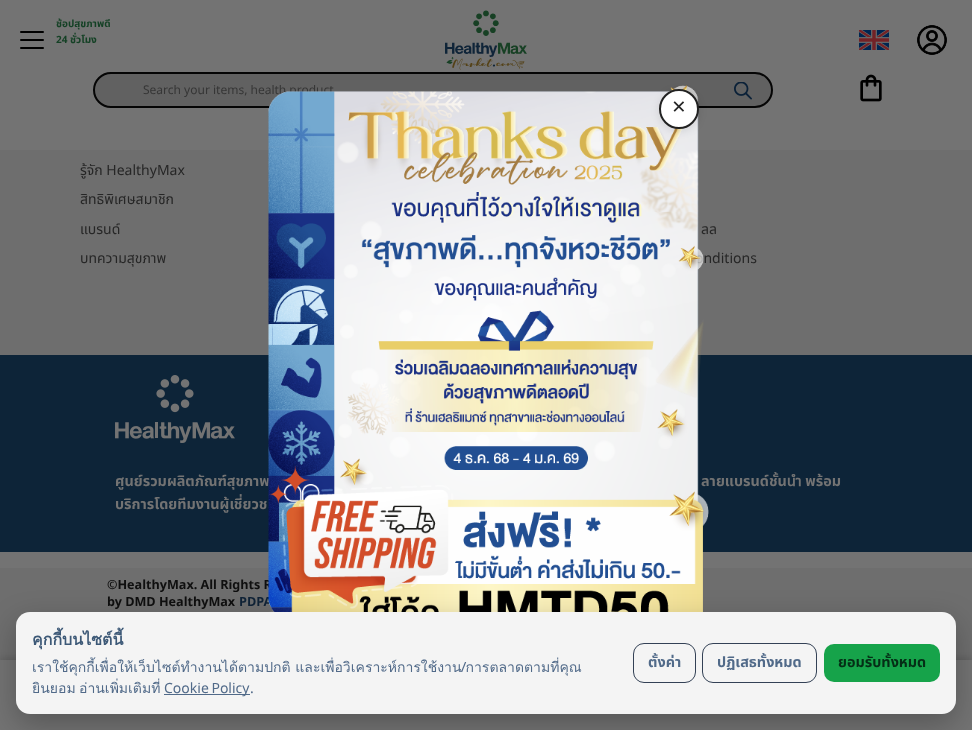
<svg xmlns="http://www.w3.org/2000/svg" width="972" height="730">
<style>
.a{font:bold 10px Noto Sans Thai;fill:#144125}
.b{font:12px Noto Sans Thai;fill:#363636}
.c{font:14px Noto Sans Thai;fill:#262626}
.d{font:bold 14.4px Noto Sans Thai;fill:#737373}
.e{font:bold 12.6px Noto Sans Thai;fill:#0f0f0f}
.f{font:bold 12.6px Noto Sans Thai;fill:#102337}
.g{font:24px Noto Sans Thai;fill:#262626}
.h{font:bold 16px Loma;fill:#3d5977}
.i{font:14px Loma;fill:#516a89}
.j{font:14px Noto Sans;fill:#516a89}
.k{font:bold 14.4px Noto Sans Thai;fill:#516a89}
.l{font:bold 14.4px Noto Sans Thai;fill:#052e16}
</style>
<rect width="100%" height="100%" fill="#737373"/>
<rect fill="#000" x="20" y="39" width="24" height="2" rx="1"/>
<rect fill="#000" x="20" y="31" width="24" height="2" rx="1"/>
<rect fill="#000" x="20" y="47" width="24" height="2" rx="1"/>
<image href="1.png" x="445" y="10" width="82" height="60"/>
<image href="2.png" x="859" y="30" width="30" height="20"/>
<image href="3.png" x="917" y="25" width="30" height="30"/>
<rect fill="#616161" stroke="#050505" stroke-width="2" x="94" y="73" width="678" height="34" rx="17"/>
<image href="4.png" x="734" y="82" width="18" height="18"/>
<image href="5.png" x="860" y="74" width="22" height="28"/>
<path fill="#6e6e6e" d="M0 150h972v205H0z"/>
<path fill="#0d2438" d="M0 355h972v197H0z"/>
<image href="7.png" x="115" y="375" width="120" height="68"/>
<path fill="#6e6e6e" d="M0 568h972v92H0z"/>
<path fill="#0000001f" filter="blur(3px)" d="M0 658h972v70H0z"/>
<path fill="#737373" d="M0 660h972v70H0z"/>
<text class="a" x="56" y="27">ช้อปสุขภาพดี</text>
<text class="a" x="56" y="43">24 ชั่วโมง</text>
<text class="b" x="143" y="94">Search your items, health product</text>
<text class="c" x="80" y="175">รู้จัก HealthyMax</text>
<text class="c" x="80" y="204">สิทธิพิเศษสมาชิก</text>
<text class="c" x="80" y="234">แบรนด์</text>
<text class="c" x="80" y="263">บทความสุขภาพ</text>
<text class="c" x="701" y="234">ลล</text>
<text class="c" x="695" y="263">onditions</text>
<text class="d" x="115" y="486">ศูนย์รวมผลิตภัณฑ์สุขภาพ</text>
<text class="d" x="701" y="486">ลายแบรนด์ชั้นนำ พร้อม</text>
<text class="d" x="115" y="509">บริการโดยทีมงานผู้เชี่ยวช</text>
<text class="e" x="107" y="589">©HealthyMax. All Rights R</text>
<text class="e" x="107" y="606">by DMD HealthyMax</text>
<text class="f" x="239" y="606">PDPA</text>
<image href="6.png" x="268" y="85" width="441" height="527"/>
<rect fill="#0000001a" filter="blur(4px)" x="659" y="91" width="40" height="40" rx="20"/>
<circle fill="#fff" stroke="#222" stroke-width="2" cx="679" cy="109" r="19"/>
<text class="g" x="672" y="115">×</text>
<rect fill="#00000040" filter="blur(15px)" x="16" y="622" width="940" height="102" rx="14"/>
<rect fill="#f4f4f4" x="16" y="612" width="940" height="102" rx="14"/>
<text class="h" x="32" y="645">คุกกี้บนไซต์นี้</text>
<text class="i" x="32" y="672">เราใช้คุกกี้เพื่อให้เว็บไซต์ทำงานได้ตามปกติ และเพื่อวิเคราะห์การใช้งาน/การตลาดตามที่คุณ</text>
<text class="i" x="32" y="693">ยินยอม</text>
<text class="i" x="79" y="693">อ่านเพิ่มเติมที่</text>
<path fill="#516a89" d="M164 694h86v1H164z"/>
<text class="j" x="164" y="693" word-spacing="-1">Cookie Policy</text>
<text class="j" x="250" y="693">.</text>
<rect fill="none" stroke="#334155" x="633.5" y="643.5" width="62" height="39" rx="10.5"/>
<text class="k" x="648" y="667">ตั้งค่า</text>
<rect fill="none" stroke="#334155" x="702.5" y="643.5" width="114" height="39" rx="10.5"/>
<text class="k" x="717" y="667">ปฏิเสธทั้งหมด</text>
<rect fill="#16a34a" x="824" y="644" width="116" height="38" rx="10"/>
<text class="l" x="838" y="667">ยอมรับทั้งหมด</text>
</svg>
